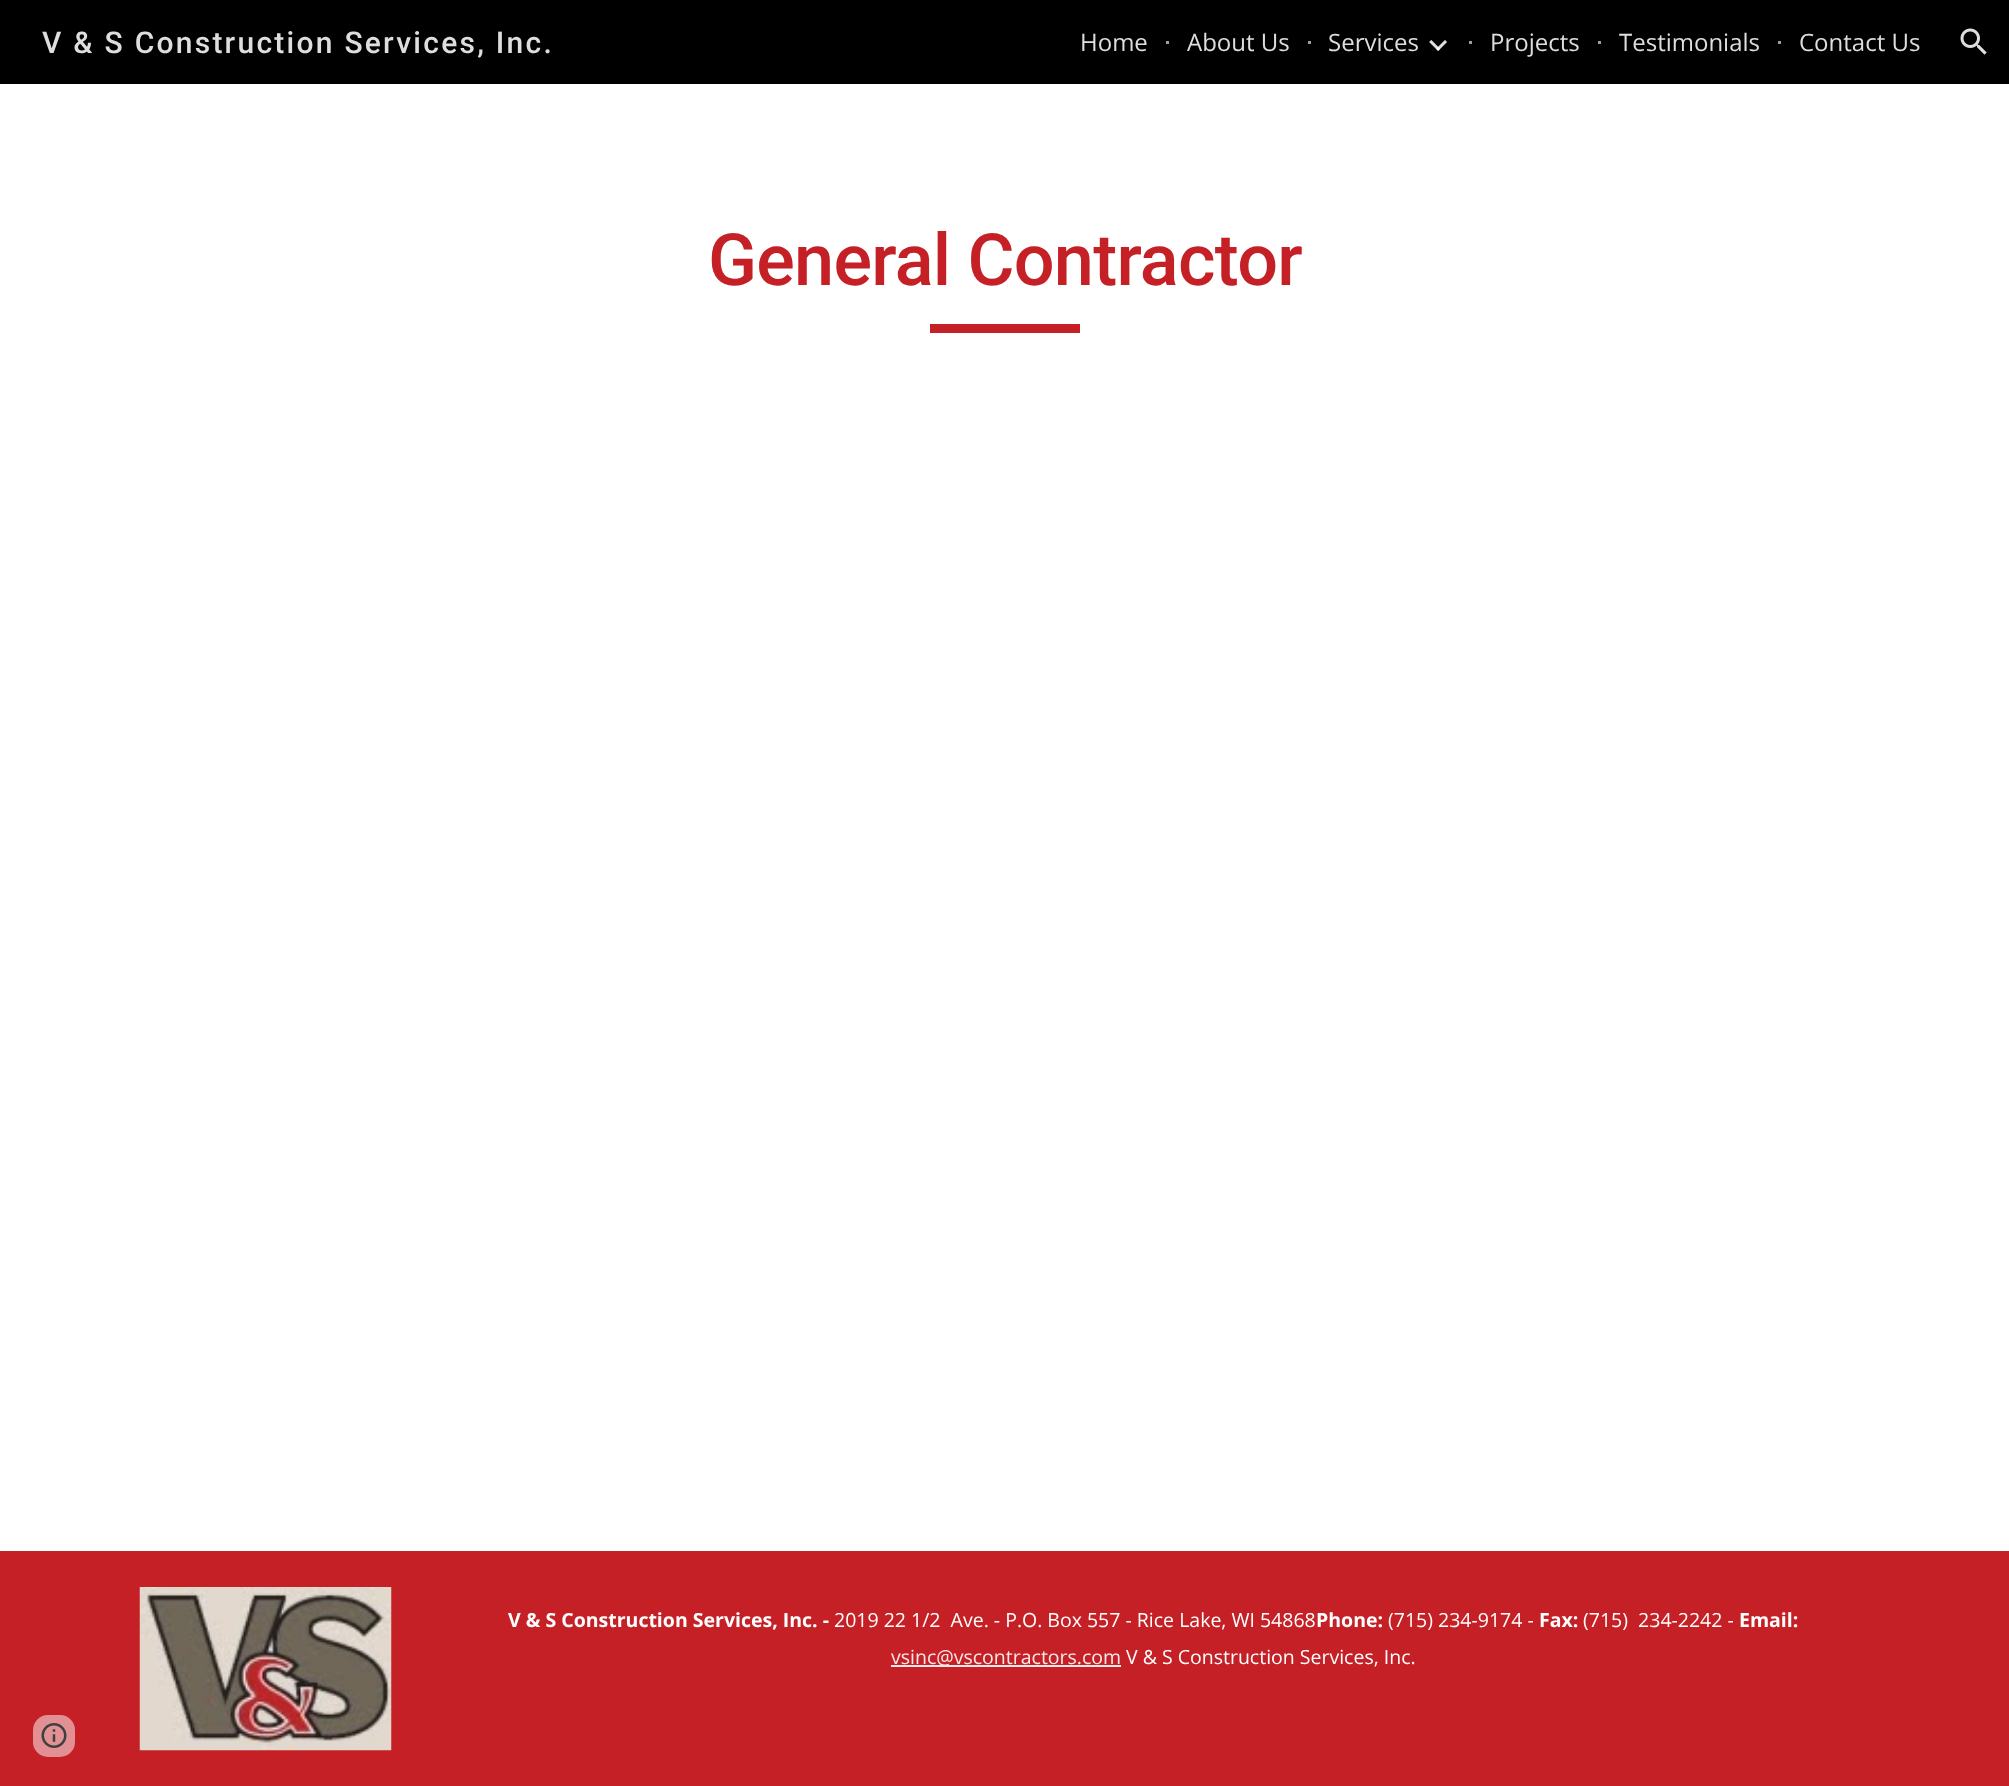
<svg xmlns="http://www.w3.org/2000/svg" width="2009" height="1786">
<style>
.a{font:500 30px Roboto;letter-spacing:2.25px;fill:#dedede}
.b{font:24px Open Sans;fill:#dedede}
.c{font:500 72px Roboto;letter-spacing:-0.75px;fill:#c52026}
.d{font:bold 19.5px Open Sans;fill:#fff}
.e{font:19.5px Open Sans;fill:#fff}
.f{font:19.5px Open Sans;fill:#f9e9e9}
</style>
<rect width="100%" height="100%" fill="#fff"/>
<path fill="#000" d="M0 0h2009v84H0z"/>
<path fill="#9e9e9e" d="M1166 41h3v3H1166z"/>
<path fill="#9e9e9e" d="M1308 41h3v3H1308z"/>
<image href="1.png" x="1429" y="40" width="18" height="11"/>
<path fill="#9e9e9e" d="M1469 41h3v3H1469z"/>
<path fill="#9e9e9e" d="M1598 41h3v3H1598z"/>
<path fill="#9e9e9e" d="M1778 41h3v3H1778z"/>
<image href="2.png" x="1960" y="28" width="27" height="27"/>
<path fill="#c52026" d="M930 324h150v9H930z"/>
<path fill="#c52026" d="M0 1551h2009v235H0z"/>
<image href="3.png" x="139" y="1587" width="253" height="164"/>
<path fill="#f9e9e9" d="M891 1665h230v2H891z"/>
<rect fill="#e29093" x="33" y="1715" width="42" height="42" rx="15"/>
<image href="4.png" x="41" y="1723" width="26" height="25"/>
<text class="a" x="42" y="53">V &amp; S Construction Services, Inc.</text>
<text class="b" x="1080" y="51">Home</text>
<text class="b" x="1187" y="51">About Us</text>
<text class="b" x="1328" y="51">Services</text>
<text class="b" x="1490" y="51">Projects</text>
<text class="b" x="1619" y="51">Testimonials</text>
<text class="b" x="1799" y="51">Contact Us</text>
<text class="c" x="708" y="285">General Contractor</text>
<text class="d" x="508" y="1627">V &amp; S Construction Services, Inc. -</text>
<text class="e" xml:space="preserve" x="834" y="1627">2019 22 1/2  Ave. - P.O. Box 557 - Rice Lake, WI 54868</text>
<text class="d" x="1316" y="1627">Phone:</text>
<text class="e" x="1388" y="1627">(715) 234-9174 -</text>
<text class="d" x="1539" y="1627">Fax:</text>
<text class="e" xml:space="preserve" x="1583" y="1627">(715)  234-2242 -</text>
<text class="d" x="1739" y="1627">Email:</text>
<text class="f" x="891" y="1664">vsinc@vscontractors.com</text>
<text class="e" x="1126" y="1664">V &amp; S Construction Services, Inc.</text>
</svg>
